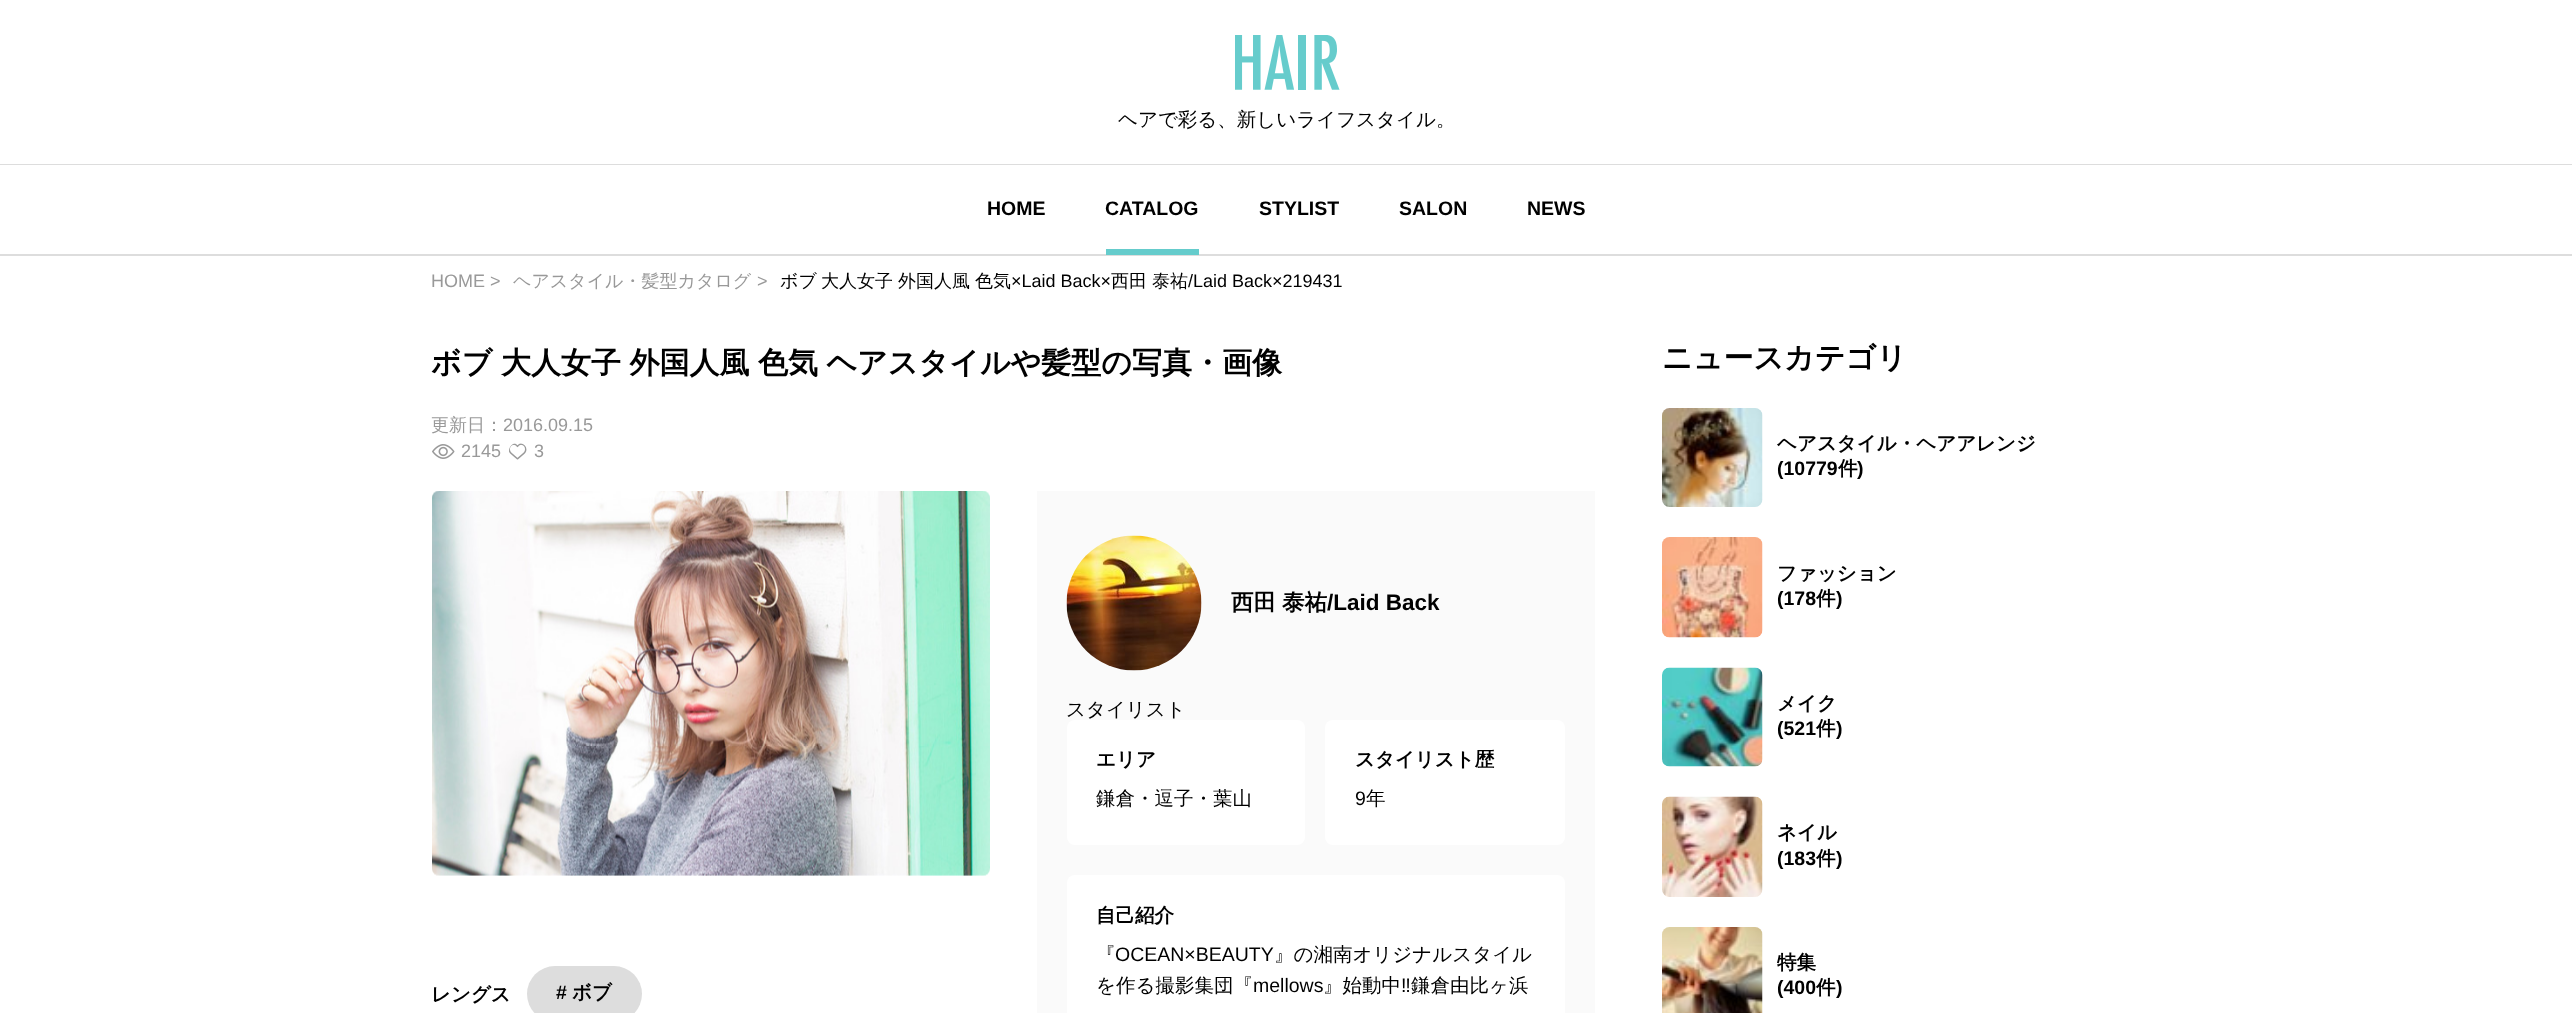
<svg xmlns="http://www.w3.org/2000/svg" width="2572" height="1013">
<style>
.a{font:500 19.5px WenQuanYi Zen Hei;fill:#000}
.b{font:bold 19.5px Liberation Sans;fill:#000}
.c{font:18px Liberation Sans;fill:#999}
.d{font:500 18px WenQuanYi Zen Hei;fill:#999}
.e{font:500 18px WenQuanYi Zen Hei;fill:#000}
.f{font:18px Liberation Sans;fill:#000}
.g{font:bold 30px WenQuanYi Zen Hei;fill:#000}
.h{font:bold 19.5px WenQuanYi Zen Hei;fill:#000}
.i{font:bold 22.5px WenQuanYi Zen Hei;fill:#000}
.j{font:bold 22.5px Liberation Sans;fill:#000}
.k{font:19.5px Liberation Sans;fill:#000}
</style>
<rect width="100%" height="100%" fill="#fff"/>
<path fill="#ddd" d="M0 164h2572v1H0z"/>
<image href="1.png" x="1235" y="35" width="105" height="55"/>
<path fill="#ddd" d="M0 254h2572v2H0z"/>
<path fill="#65cccc" d="M1106 249h93v6H1106z"/>
<image href="2.png" x="432" y="444" width="23" height="15"/>
<image href="3.png" x="509" y="443" width="18" height="17"/>
<image href="4.png" x="432" y="491" width="558" height="385"/>
<rect fill="#ddd" x="527" y="966" width="115" height="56" rx="28"/>
<path fill="#fafafa" d="M1037 491h558v522H1037z"/>
<image href="5.png" x="1066" y="535" width="136" height="136"/>
<rect fill="#fff" x="1067" y="720" width="238" height="125" rx="8"/>
<rect fill="#fff" x="1325" y="720" width="240" height="125" rx="8"/>
<rect fill="#fff" x="1067" y="875" width="498" height="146" rx="8"/>
<image href="6.png" x="1662" y="408" width="101" height="99"/>
<image href="7.png" x="1662" y="537" width="101" height="101"/>
<image href="8.png" x="1662" y="667" width="101" height="100"/>
<image href="9.png" x="1662" y="796" width="101" height="101"/>
<image href="10.png" x="1662" y="927" width="101" height="86"/>
<text class="a" x="1118" y="126">ヘアで彩る、新しいライフスタイル。</text>
<text class="b" x="987" y="215">HOME</text>
<text class="b" x="1105" y="215">CATALOG</text>
<text class="b" x="1259" y="215">STYLIST</text>
<text class="b" x="1399" y="215">SALON</text>
<text class="b" x="1527" y="215">NEWS</text>
<text class="c" x="431" y="287">HOME &gt;</text>
<text class="d" x="513" y="287">ヘアスタイル・髪型カタログ</text>
<text class="c" x="757" y="287">&gt;</text>
<text class="e" x="780" y="287">ボブ</text>
<text class="e" x="821" y="287">大人女子</text>
<text class="e" x="898" y="287">外国人風</text>
<text class="e" x="975" y="287">色気</text>
<text class="f" x="1011" y="287">×Laid Back×</text>
<text class="e" x="1111" y="287">西田</text>
<text class="e" x="1152" y="287">泰祐</text>
<text class="f" x="1188" y="287">/Laid Back×219431</text>
<text class="g" x="431" y="373" word-spacing="-0.5">ボブ 大人女子 外国人風 色気 ヘアスタイルや髪型の写真・画像</text>
<text class="d" x="431" y="431">更新日：</text>
<text class="c" x="503" y="431">2016.09.15</text>
<text class="c" x="461" y="457">2145</text>
<text class="c" x="534" y="457">3</text>
<text class="h" x="431" y="1001">レングス</text>
<text class="b" x="556" y="999">#</text>
<text class="h" x="572" y="999">ボブ</text>
<text class="i" x="1231" y="610">西田</text>
<text class="i" x="1282" y="610">泰祐</text>
<text class="j" x="1327" y="610">/Laid Back</text>
<text class="a" x="1066" y="716">スタイリスト</text>
<text class="h" x="1096" y="766">エリア</text>
<text class="a" x="1096" y="805">鎌倉・逗子・葉山</text>
<text class="h" x="1355" y="766">スタイリスト歴</text>
<text class="k" x="1355" y="805">9</text>
<text class="a" x="1366" y="805">年</text>
<text class="h" x="1096" y="922">自己紹介</text>
<text class="a" x="1096" y="961">『</text>
<text class="k" x="1115" y="961">OCEAN×BEAUTY</text>
<text class="a" x="1274" y="961">』の湘南オリジナルスタイル</text>
<text class="a" x="1096" y="992">を作る撮影集団『</text>
<text class="k" x="1253" y="992">mellows</text>
<text class="a" x="1323" y="992">』始動中</text>
<text class="k" x="1401" y="992">‼︎</text>
<text class="a" x="1411" y="992">鎌倉由比ヶ浜</text>
<text class="g" x="1662" y="368">ニュースカテゴリ</text>
<text class="h" x="1777" y="450">ヘアスタイル・ヘアアレンジ</text>
<text class="b" x="1777" y="475">(10779</text>
<text class="h" x="1838" y="475">件</text>
<text class="b" x="1857" y="475">)</text>
<text class="h" x="1777" y="580">ファッション</text>
<text class="b" x="1777" y="605">(178</text>
<text class="h" x="1816" y="605">件</text>
<text class="b" x="1836" y="605">)</text>
<text class="h" x="1777" y="710">メイク</text>
<text class="b" x="1777" y="735">(521</text>
<text class="h" x="1816" y="735">件</text>
<text class="b" x="1836" y="735">)</text>
<text class="h" x="1777" y="839">ネイル</text>
<text class="b" x="1777" y="865">(183</text>
<text class="h" x="1816" y="865">件</text>
<text class="b" x="1836" y="865">)</text>
<text class="h" x="1777" y="969">特集</text>
<text class="b" x="1777" y="994">(400</text>
<text class="h" x="1816" y="994">件</text>
<text class="b" x="1836" y="994">)</text>
</svg>
